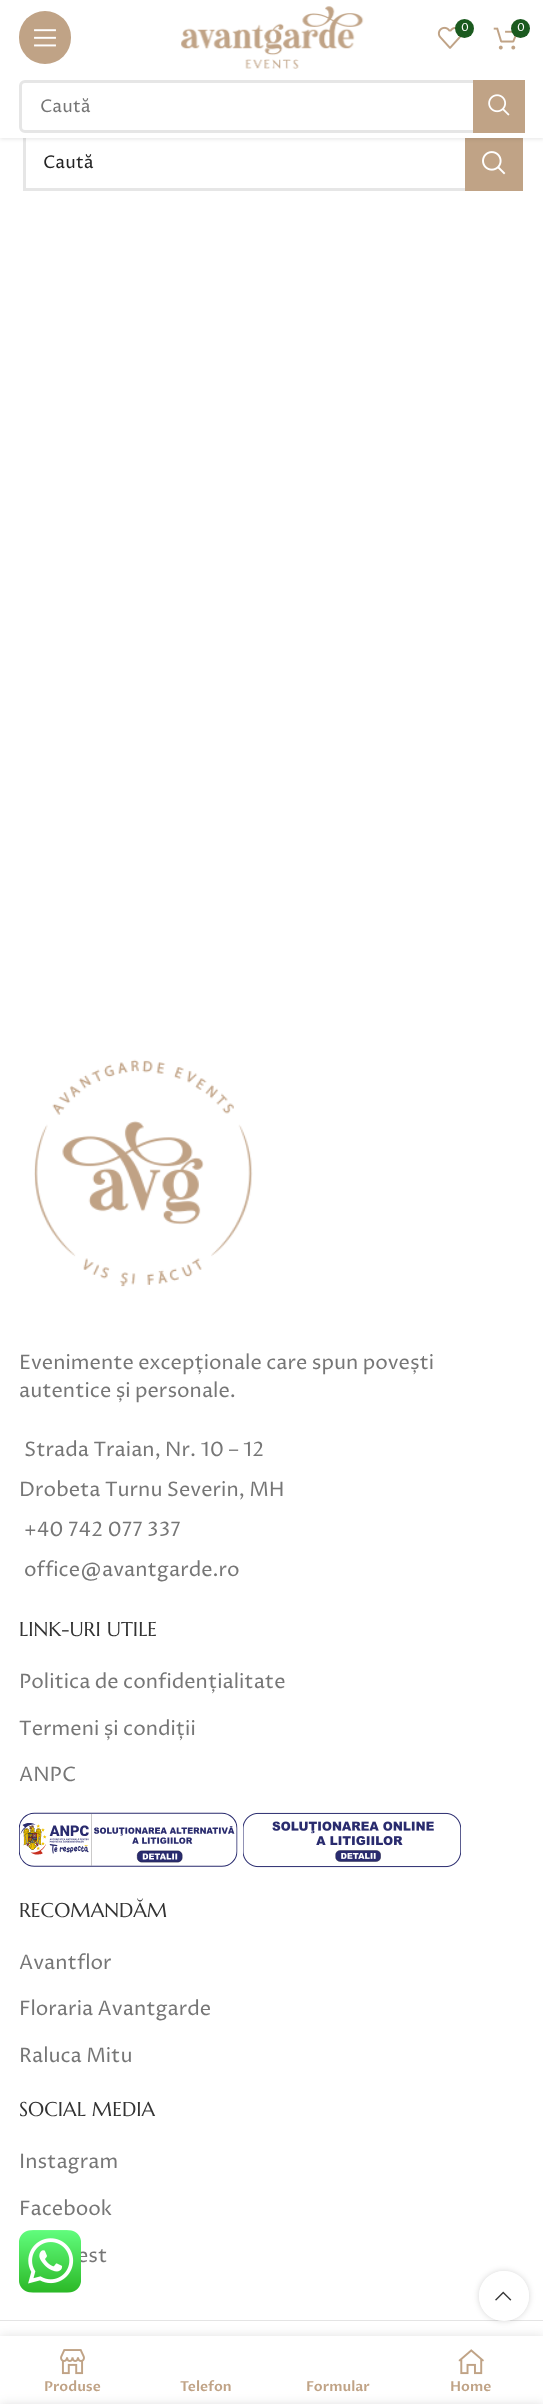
<svg xmlns="http://www.w3.org/2000/svg" width="543" height="2404">
<style>
.a{font:11px Proza Libre;fill:#fff}
.b{font:17.5px Proza Libre;fill:#767676}
.c{font:17.5px Proza Libre;fill:#242424}
.d{font:20px Proza Libre;fill:#767676}
.e{font:20px Marcellus;fill:#333}
.f{font:600 13.75px Proza Libre;fill:#c0a386}
</style>
<defs>
<clipPath id="clip1"><path d="M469 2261h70v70h-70zm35 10c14 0 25 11 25 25c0 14-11 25-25 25c-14 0-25-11-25-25c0-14 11-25 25-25z" clip-rule="evenodd"/></clipPath>
</defs>
<rect width="100%" height="100%" fill="#fff"/>
<path fill="none" stroke="#e6e6e6" stroke-width="3" d="M24.5 135.5h497v54H24.5z"/>
<path fill="#c0a386" d="M465 138h58v53H465z"/>
<path fill="#0000001a" filter="blur(2px)" d="M0 1h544v138H0z"/>
<path fill="#fff" d="M0 0h543v138H0z"/>
<rect fill="#c0a386" x="19" y="11" width="52" height="53" rx="26"/>
<image href="1.png" x="34" y="29" width="22" height="18"/>
<image href="2.png" x="181" y="6" width="183" height="63"/>
<image href="3.png" x="437" y="26" width="24" height="23"/>
<circle fill="#1b5a1f" cx="464.5" cy="28.5" r="9.5"/>
<image href="4.png" x="493" y="27" width="24" height="23"/>
<circle fill="#1b5a1f" cx="520.5" cy="28.5" r="9.5"/>
<rect fill="none" stroke="#e6e6e6" stroke-width="3" x="20.5" y="81.5" width="503" height="50" rx="4.5"/>
<path fill="#c0a386" d="M473 80h52v53H473z"/>
<image href="5.png" x="488" y="94" width="22" height="22"/>
<image href="6.png" x="482" y="151" width="24" height="24"/>
<image href="7.png" x="34" y="1059" width="219" height="228"/>
<image href="8.png" x="19" y="1812" width="219" height="55"/>
<image href="9.png" x="243" y="1812" width="218" height="56"/>
<path fill="#e4e4e4" d="M0 2320h543v1H0z"/>
<g clip-path="url(#clip1)">
<rect fill="#0000002b" filter="blur(3px)" x="479" y="2271" width="50" height="50" rx="25"/>
</g>
<circle fill="#ffffffe6" cx="504" cy="2296" r="25"/>
<image href="11.png" x="495" y="2291" width="17" height="10"/>
<path fill="#0000001f" filter="blur(5.5px)" d="M0 2336h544v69H0z"/>
<path fill="#fff" d="M0 2336h543v68H0z"/>
<image href="12.png" x="60" y="2349" width="25" height="26"/>
<image href="13.png" x="458" y="2349" width="26" height="26"/>
<path fill="#00000024" filter="blur(5.5px)" d="M0 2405h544v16H0z"/>
<text class="a" x="461" y="31">0</text>
<text class="a" x="517" y="31">0</text>
<text class="b" x="40" y="112">Caută</text>
<text class="c" x="43" y="168">Caută</text>
<text class="d" x="19" y="1369">Evenimente excepționale care spun povești</text>
<text class="d" x="19" y="1397">autentice și personale.</text>
<text class="d" x="24" y="1456">Strada Traian, Nr. 10 – 12</text>
<text class="d" x="19" y="1496">Drobeta Turnu Severin, MH</text>
<text class="d" x="24" y="1536">+40 742 077 337</text>
<text class="d" x="24" y="1576">office@avantgarde.ro</text>
<text class="e" x="19" y="1636">LINK-URI UTILE</text>
<text class="d" x="19" y="1688">Politica de confidențialitate</text>
<text class="d" x="19" y="1735">Termeni și condiții</text>
<text class="d" x="19" y="1781">ANPC</text>
<text class="e" x="19" y="1917">RECOMANDĂM</text>
<text class="d" x="19" y="1969">Avantflor</text>
<text class="d" x="19" y="2015">Floraria Avantgarde</text>
<text class="d" x="19" y="2062">Raluca Mitu</text>
<text class="e" x="19" y="2116">SOCIAL MEDIA</text>
<text class="d" x="19" y="2168">Instagram</text>
<text class="d" x="19" y="2215">Facebook</text>
<text class="d" x="77" y="2262">est</text>
<image href="10.png" x="19" y="2230" width="62" height="63"/>
<text class="f" x="44" y="2391">Produse</text>
<text class="f" x="180" y="2391">Telefon</text>
<text class="f" x="306" y="2391">Formular</text>
<text class="f" x="450" y="2391">Home</text>
</svg>
